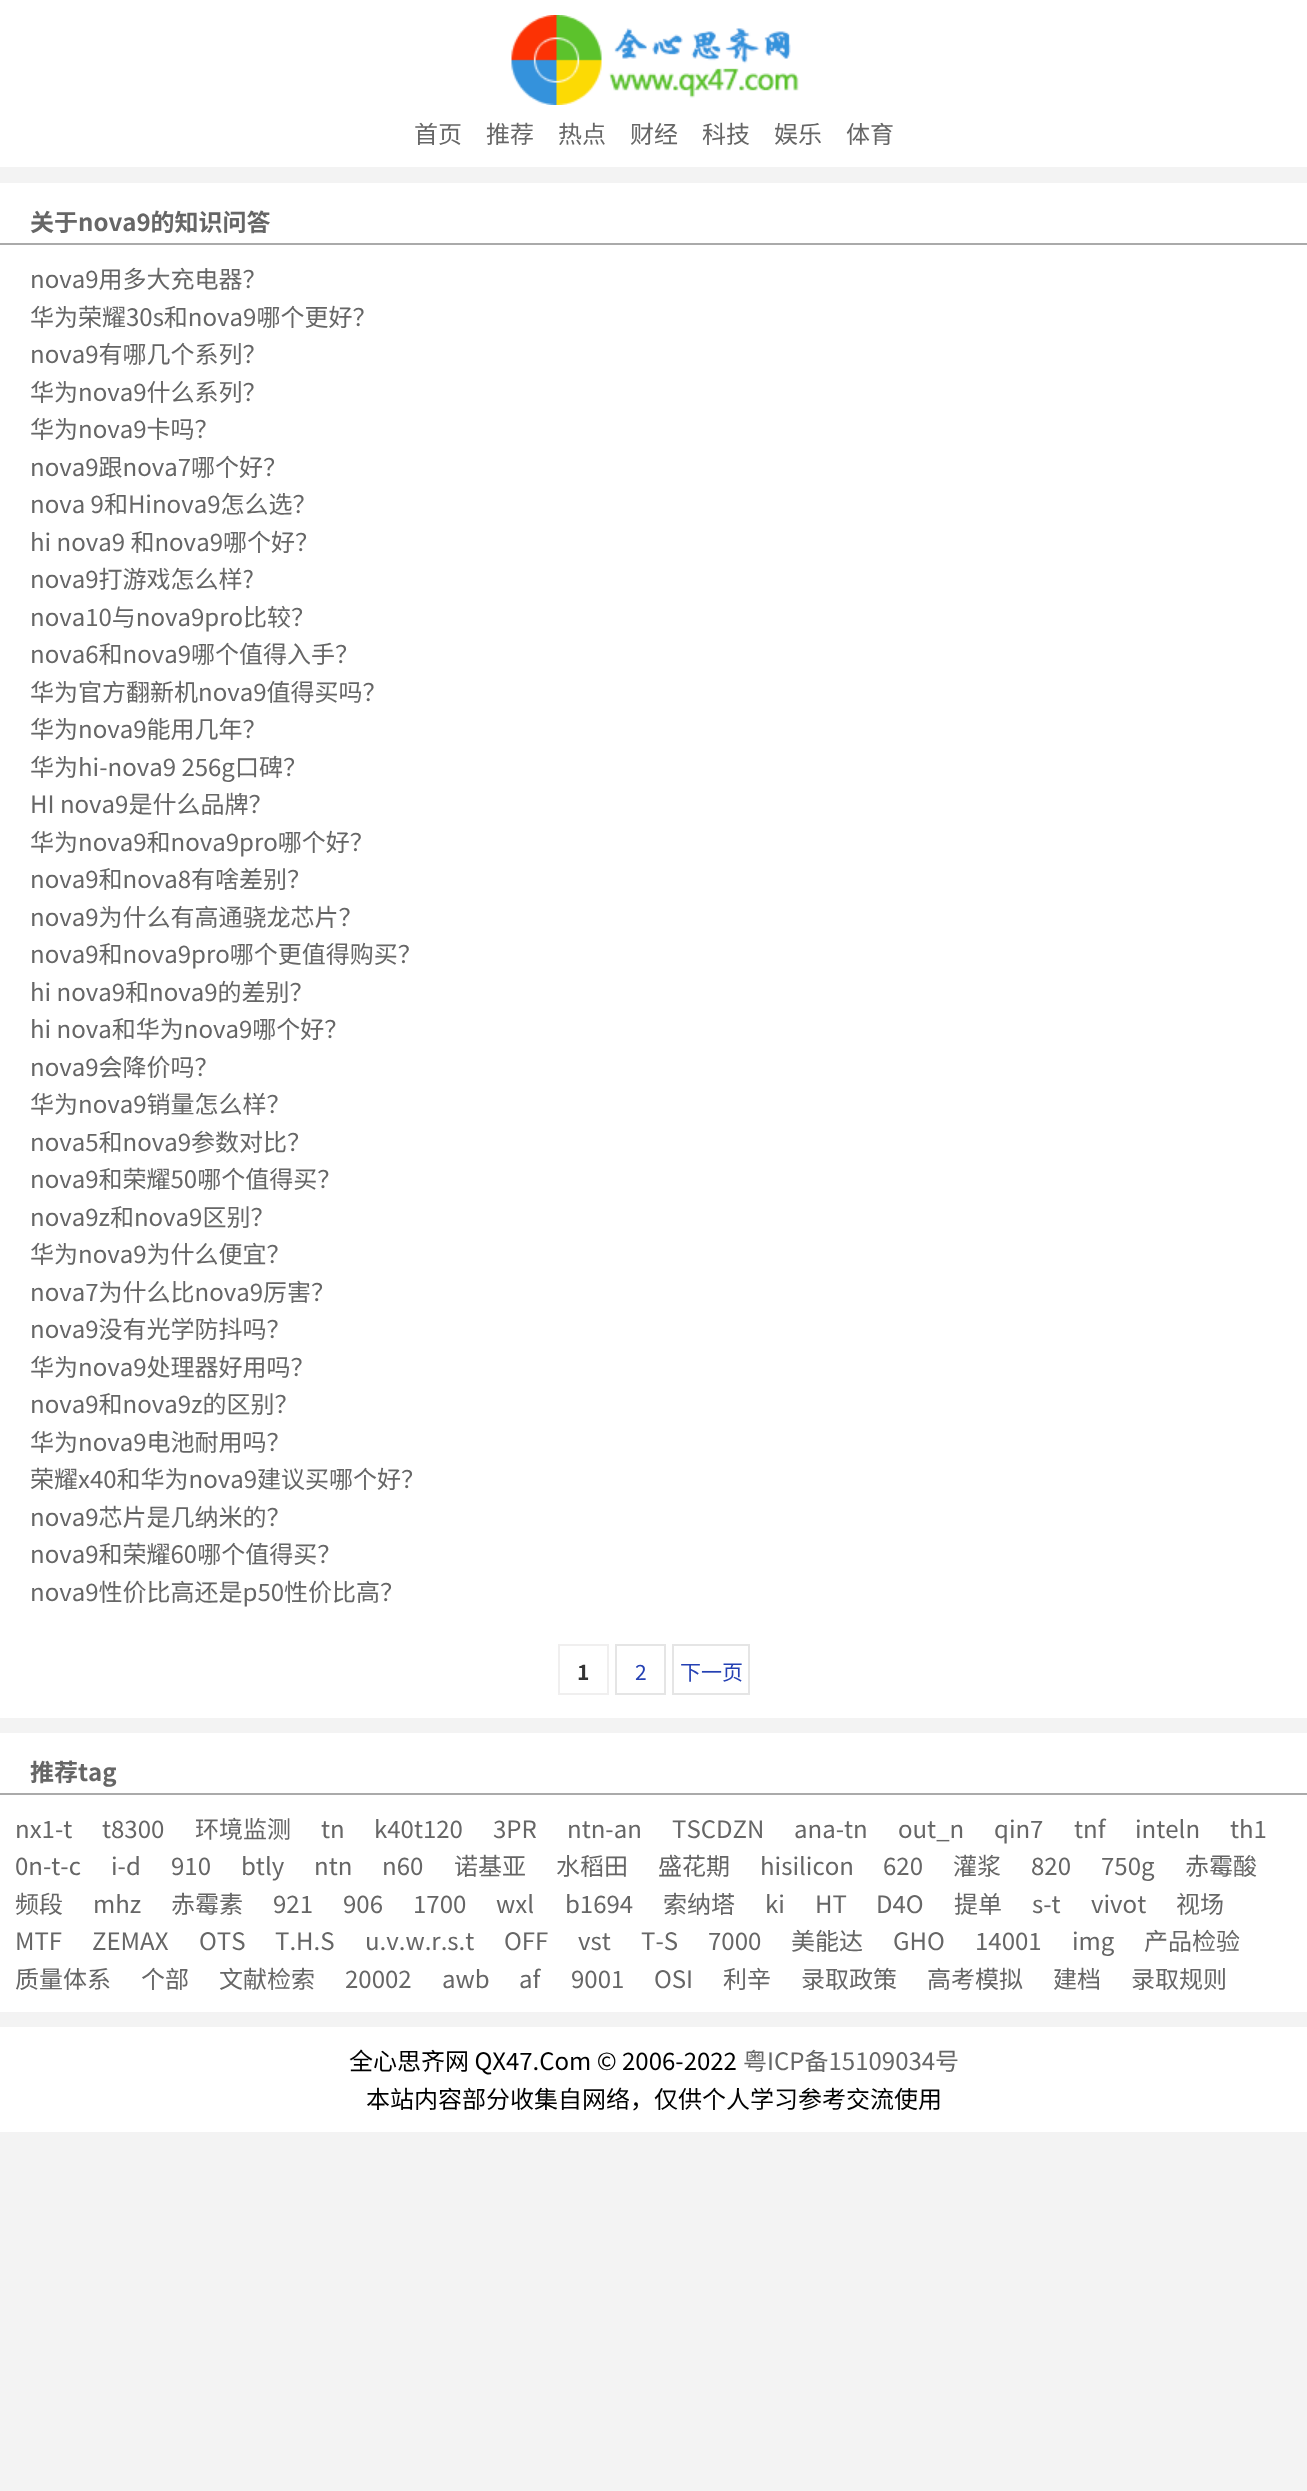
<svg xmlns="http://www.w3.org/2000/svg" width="1307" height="2491">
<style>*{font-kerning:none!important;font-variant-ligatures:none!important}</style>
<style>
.a{font:24px Noto Sans CJK SC;fill:#666}
.b{font:bold 24px Noto Sans CJK SC;fill:#666}
.c{font:bold 21px Noto Sans CJK SC;fill:#333}
.d{font:21px Noto Sans CJK SC;fill:#2440b3}
.e{font:24px Noto Sans CJK SC;fill:#000}
</style>
<rect width="100%" height="100%" fill="#f3f3f3"/>
<path fill="#fff" d="M0 0h1307v167H0z"/>
<image href="1.png" x="511" y="15" width="288" height="90"/>
<path fill="#fff" d="M0 183h1307v1535H0z"/>
<path fill="#aaa" d="M0 243h1307v2H0z"/>
<path fill="none" stroke="#f0efef" stroke-width="2" d="M559 1645h49v49H559z"/>
<path fill="none" stroke="#e5e5e5" stroke-width="2" d="M616 1645h49v49H616z"/>
<path fill="none" stroke="#e5e5e5" stroke-width="2" d="M673 1645h76v49H673z"/>
<path fill="#fff" d="M0 1733h1307v279H0z"/>
<path fill="#aaa" d="M0 1793h1307v2H0z"/>
<path fill="#fff" d="M0 2027h1307v105H0z"/>
<text class="a" x="414" y="143">首页</text>
<text class="a" x="486" y="143">推荐</text>
<text class="a" x="558" y="143">热点</text>
<text class="a" x="630" y="143">财经</text>
<text class="a" x="702" y="143">科技</text>
<text class="a" x="774" y="143">娱乐</text>
<text class="a" x="846" y="143">体育</text>
<text class="b" x="30" y="231">关于nova9的知识问答</text>
<text class="a" x="30" y="288">nova9用多大充电器？</text>
<text class="a" x="30" y="326">华为荣耀30s和nova9哪个更好？</text>
<text class="a" x="30" y="363">nova9有哪几个系列？</text>
<text class="a" x="30" y="401">华为nova9什么系列？</text>
<text class="a" x="30" y="438">华为nova9卡吗？</text>
<text class="a" x="30" y="476">nova9跟nova7哪个好？</text>
<text class="a" x="30" y="513">nova 9和Hinova9怎么选？</text>
<text class="a" x="30" y="551">hi nova9 和nova9哪个好？</text>
<text class="a" x="30" y="588">nova9打游戏怎么样?</text>
<text class="a" x="30" y="626">nova10与nova9pro比较？</text>
<text class="a" x="30" y="663">nova6和nova9哪个值得入手？</text>
<text class="a" x="30" y="701">华为官方翻新机nova9值得买吗？</text>
<text class="a" x="30" y="738">华为nova9能用几年？</text>
<text class="a" x="30" y="776">华为hi-nova9 256g口碑？</text>
<text class="a" x="30" y="813">HI nova9是什么品牌？</text>
<text class="a" x="30" y="851">华为nova9和nova9pro哪个好？</text>
<text class="a" x="30" y="888">nova9和nova8有啥差别？</text>
<text class="a" x="30" y="926">nova9为什么有高通骁龙芯片？</text>
<text class="a" x="30" y="963">nova9和nova9pro哪个更值得购买？</text>
<text class="a" x="30" y="1001">hi nova9和nova9的差别？</text>
<text class="a" x="30" y="1038">hi nova和华为nova9哪个好？</text>
<text class="a" x="30" y="1076">nova9会降价吗？</text>
<text class="a" x="30" y="1113">华为nova9销量怎么样？</text>
<text class="a" x="30" y="1151">nova5和nova9参数对比？</text>
<text class="a" x="30" y="1188">nova9和荣耀50哪个值得买？</text>
<text class="a" x="30" y="1226">nova9z和nova9区别？</text>
<text class="a" x="30" y="1263">华为nova9为什么便宜？</text>
<text class="a" x="30" y="1301">nova7为什么比nova9厉害？</text>
<text class="a" x="30" y="1338">nova9没有光学防抖吗？</text>
<text class="a" x="30" y="1376">华为nova9处理器好用吗？</text>
<text class="a" x="30" y="1413">nova9和nova9z的区别？</text>
<text class="a" x="30" y="1451">华为nova9电池耐用吗？</text>
<text class="a" x="30" y="1488">荣耀x40和华为nova9建议买哪个好？</text>
<text class="a" x="30" y="1526">nova9芯片是几纳米的？</text>
<text class="a" x="30" y="1563">nova9和荣耀60哪个值得买？</text>
<text class="a" x="30" y="1601">nova9性价比高还是p50性价比高？</text>
<text class="c" x="577" y="1680">1</text>
<text class="d" x="635" y="1680">2</text>
<text class="d" x="680" y="1680">下一页</text>
<text class="b" x="30" y="1781">推荐tag</text>
<text class="a" x="15" y="1838">nx1-t</text>
<text class="a" x="102" y="1838">t8300</text>
<text class="a" x="195" y="1838">环境监测</text>
<text class="a" x="321" y="1838">tn</text>
<text class="a" x="374" y="1838">k40t120</text>
<text class="a" x="493" y="1838">3PR</text>
<text class="a" x="567" y="1838">ntn-an</text>
<text class="a" x="672" y="1838">TSCDZN</text>
<text class="a" x="794" y="1838">ana-tn</text>
<text class="a" x="898" y="1838">out_n</text>
<text class="a" x="994" y="1838">qin7</text>
<text class="a" x="1074" y="1838">tnf</text>
<text class="a" x="1135" y="1838">inteln</text>
<text class="a" x="1230" y="1838">th1</text>
<text class="a" x="15" y="1875">0n-t-c</text>
<text class="a" x="111" y="1875">i-d</text>
<text class="a" x="171" y="1875">910</text>
<text class="a" x="241" y="1875">btly</text>
<text class="a" x="314" y="1875">ntn</text>
<text class="a" x="382" y="1875">n60</text>
<text class="a" x="454" y="1875">诺基亚</text>
<text class="a" x="556" y="1875">水稻田</text>
<text class="a" x="658" y="1875">盛花期</text>
<text class="a" x="760" y="1875">hisilicon</text>
<text class="a" x="883" y="1875">620</text>
<text class="a" x="953" y="1875">灌浆</text>
<text class="a" x="1031" y="1875">820</text>
<text class="a" x="1101" y="1875">750g</text>
<text class="a" x="1185" y="1875">赤霉酸</text>
<text class="a" x="15" y="1913">频段</text>
<text class="a" x="93" y="1913">mhz</text>
<text class="a" x="171" y="1913">赤霉素</text>
<text class="a" x="273" y="1913">921</text>
<text class="a" x="343" y="1913">906</text>
<text class="a" x="413" y="1913">1700</text>
<text class="a" x="496" y="1913">wxl</text>
<text class="a" x="565" y="1913">b1694</text>
<text class="a" x="663" y="1913">索纳塔</text>
<text class="a" x="765" y="1913">ki</text>
<text class="a" x="815" y="1913">HT</text>
<text class="a" x="876" y="1913">D4O</text>
<text class="a" x="954" y="1913">提单</text>
<text class="a" x="1032" y="1913">s-t</text>
<text class="a" x="1091" y="1913">vivot</text>
<text class="a" x="1176" y="1913">视场</text>
<text class="a" x="15" y="1950">MTF</text>
<text class="a" x="92" y="1950">ZEMAX</text>
<text class="a" x="199" y="1950">OTS</text>
<text class="a" x="275" y="1950">T.H.S</text>
<text class="a" x="365" y="1950">u.v.w.r.s.t</text>
<text class="a" x="504" y="1950">OFF</text>
<text class="a" x="578" y="1950">vst</text>
<text class="a" x="641" y="1950">T-S</text>
<text class="a" x="708" y="1950">7000</text>
<text class="a" x="791" y="1950">美能达</text>
<text class="a" x="893" y="1950">GHO</text>
<text class="a" x="975" y="1950">14001</text>
<text class="a" x="1072" y="1950">img</text>
<text class="a" x="1144" y="1950">产品检验</text>
<text class="a" x="15" y="1988">质量体系</text>
<text class="a" x="141" y="1988">个部</text>
<text class="a" x="219" y="1988">文献检索</text>
<text class="a" x="345" y="1988">20002</text>
<text class="a" x="442" y="1988">awb</text>
<text class="a" x="519" y="1988">af</text>
<text class="a" x="571" y="1988">9001</text>
<text class="a" x="654" y="1988">OSI</text>
<text class="a" x="723" y="1988">利辛</text>
<text class="a" x="801" y="1988">录取政策</text>
<text class="a" x="927" y="1988">高考模拟</text>
<text class="a" x="1053" y="1988">建档</text>
<text class="a" x="1131" y="1988">录取规则</text>
<text class="e" x="349" y="2070">全心思齐网 QX47.Com © 2006-2022</text>
<text class="a" x="743" y="2070">粤ICP备15109034号</text>
<text class="e" x="366" y="2108">本站内容部分收集自网络，仅供个人学习参考交流使用</text>
</svg>
